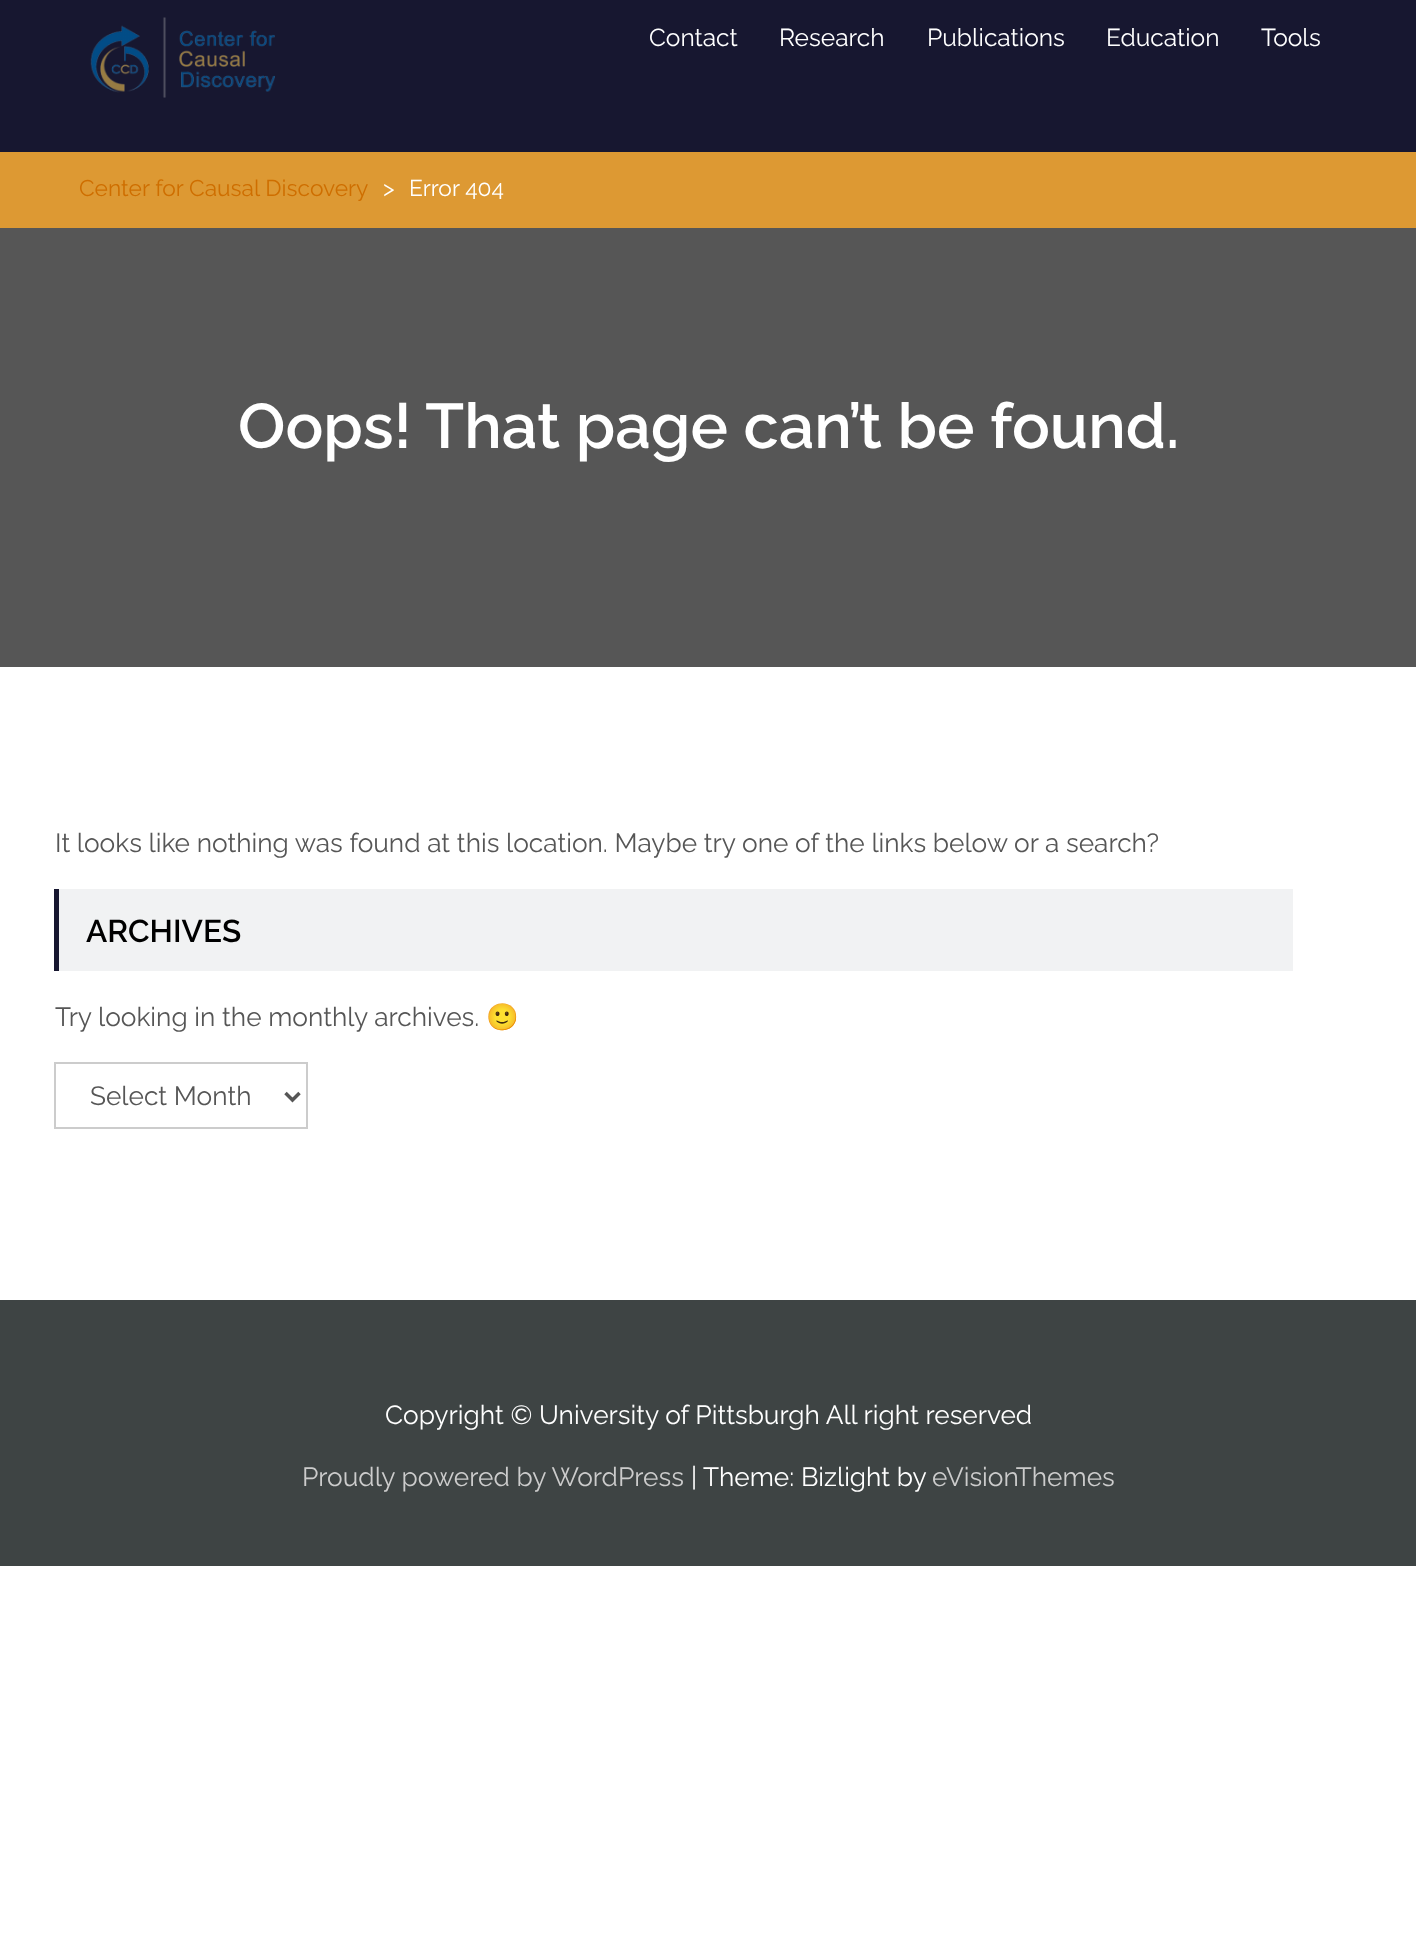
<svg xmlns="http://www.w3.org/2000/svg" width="1416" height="1940">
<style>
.a{font:24.5px Raleway;fill:#fff}
.b{font:22.75px Raleway;fill:#ce6e00}
.c{font:22.75px Raleway;fill:#fff}
.d{font:600 63px Raleway;fill:#fff}
.e{font:26.25px Raleway;fill:#565656}
.f{font:600 31.5px Raleway;fill:#000}
.g{font:26.25px Noto Color Emoji;fill:#565656}
.h{font:26.25px Raleway;fill:#fff}
.i{font:26.25px Raleway;fill:#ccc}
</style>
<rect width="100%" height="100%" fill="#fff"/>
<path fill="#171730" d="M0 0h1416v152H0z"/>
<image href="1.png" x="90" y="17" width="185" height="81"/>
<path fill="#d93" d="M0 152h1416v76H0z"/>
<path fill="#565656" d="M0 228h1416v439H0z"/>
<path fill="#f1f2f3" d="M59 889h1234v82H59z"/>
<path fill="#171730" d="M54 889h5v82H54z"/>
<path fill="none" stroke="#ccc" stroke-width="2" d="M55 1063h252v65H55z"/>
<path fill="none" stroke="#565656" stroke-width="3.5" d="M285.5 1093l7 7l7-7"/>
<path fill="#3e4444" d="M0 1300h1416v266H0z"/>
<text class="a" x="649" y="46">Contact</text>
<text class="a" x="779" y="46">Research</text>
<text class="a" x="927" y="46">Publications</text>
<text class="a" x="1106" y="46">Education</text>
<text class="a" x="1261" y="46">Tools</text>
<text class="b" x="79" y="196">Center for Causal Discovery</text>
<text class="c" x="383" y="196">&gt;</text>
<text class="c" x="409" y="196">Error 404</text>
<text class="d" x="238" y="448">Oops! That page can’t be found.</text>
<text class="e" x="55" y="852">It looks like nothing was found at this location. Maybe try one of the links below or a search?</text>
<text class="f" x="86" y="942">ARCHIVES</text>
<text class="e" x="55" y="1026">Try looking in the monthly archives.</text>
<text class="g" x="486" y="1026">🙂</text>
<text class="e" x="90" y="1105">Select Month</text>
<text class="h" x="385" y="1424">Copyright © University of Pittsburgh All right reserved</text>
<text class="i" x="302" y="1486">Proudly powered by WordPress</text>
<text class="h" x="691" y="1486">|</text>
<text class="h" x="703" y="1486">Theme: Bizlight by</text>
<text class="i" x="932" y="1486">eVisionThemes</text>
</svg>
